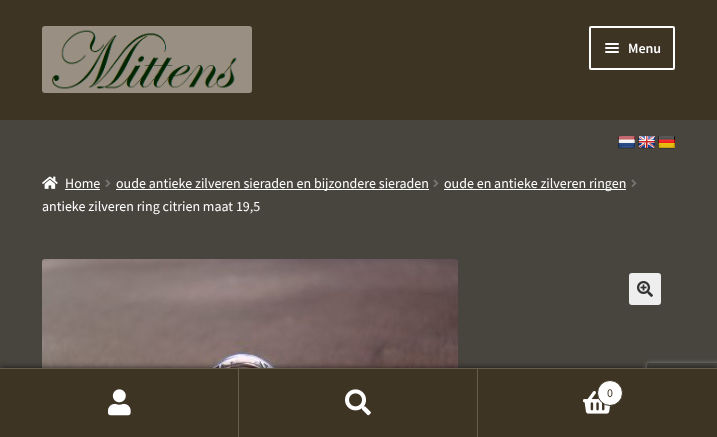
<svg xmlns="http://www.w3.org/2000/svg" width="717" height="437">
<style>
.a{font:600 14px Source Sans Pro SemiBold;fill:#fff}
.b{font:14px Source Sans Pro;fill:#fff}
.c{font:12px Source Sans Pro;fill:#3d3424}
</style>
<defs>
<clipPath id="clip1"><path d="M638 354h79v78h-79zm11 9h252c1 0 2 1 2 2v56c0 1-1 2-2 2h-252c-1 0-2-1-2-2v-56c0-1 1-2 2-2z" clip-rule="evenodd"/></clipPath>
</defs>
<rect width="100%" height="100%" fill="#47453e"/>
<path fill="#3d3424" d="M0 0h717v120H0z"/>
<image href="1.png" x="42" y="26" width="210" height="67"/>
<rect fill="none" stroke="#fff" stroke-width="2" x="590" y="27" width="84" height="42" rx="1"/>
<rect fill="#fff" x="605" y="43" width="14" height="2" rx="1"/>
<rect fill="#fff" x="605" y="47" width="14" height="2" rx="1"/>
<rect fill="#fff" x="605" y="51" width="14" height="2" rx="1"/>
<image href="2.png" x="618" y="136" width="17" height="13"/>
<image href="3.png" x="638" y="136" width="17" height="13"/>
<image href="4.png" x="658" y="136" width="17" height="13"/>
<image href="5.png" x="42" y="176" width="16" height="13"/>
<path fill="#fff" d="M65 189h35v1H65z"/>
<image href="6.png" x="105" y="179" width="6" height="8"/>
<path fill="#fff" d="M116 189h313v1H116z"/>
<image href="6.png" x="433" y="179" width="6" height="8"/>
<path fill="#fff" d="M444 189h182v1H444z"/>
<image href="6.png" x="631" y="179" width="6" height="8"/>
<image href="7.png" x="42" y="259" width="416" height="109"/>
<rect fill="#eee" x="629" y="273" width="32" height="32" rx="3"/>
<image href="8.png" x="637" y="281" width="16" height="16"/>
<path fill="#000000b3" filter="blur(3px)" d="M0 368h717v69H0z"/>
<g clip-path="url(#clip1)">
<rect fill="#808080" filter="blur(2.5px)" x="647" y="363" width="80" height="60" rx="2"/>
</g>
<path fill="#645d50" d="M0 368h717v1H0z"/>
<path fill="#3d3424" d="M0 369h238v68H0z"/>
<path fill="#645d50" d="M238 369h1v68H238z"/>
<image href="9.png" x="108" y="389" width="23" height="27"/>
<path fill="#3d3424" d="M239 369h238v68H239z"/>
<path fill="#645d50" d="M477 369h1v68H477z"/>
<image href="10.png" x="345" y="389" width="26" height="27"/>
<path fill="#3d3424" d="M478 369h239v68H478z"/>
<image href="11.png" x="583" y="391" width="28" height="23"/>
<circle fill="#fff" stroke="#3d3424" cx="610" cy="393" r="12.5"/>
<text class="a" x="628" y="53">Menu</text>
<text class="b" x="65" y="188">Home</text>
<text class="b" x="116" y="188">oude antieke zilveren sieraden en bijzondere sieraden</text>
<text class="b" x="444" y="188">oude en antieke zilveren ringen</text>
<text class="b" x="42" y="211">antieke zilveren ring citrien maat 19,5</text>
<text class="c" x="607" y="397">0</text>
</svg>
